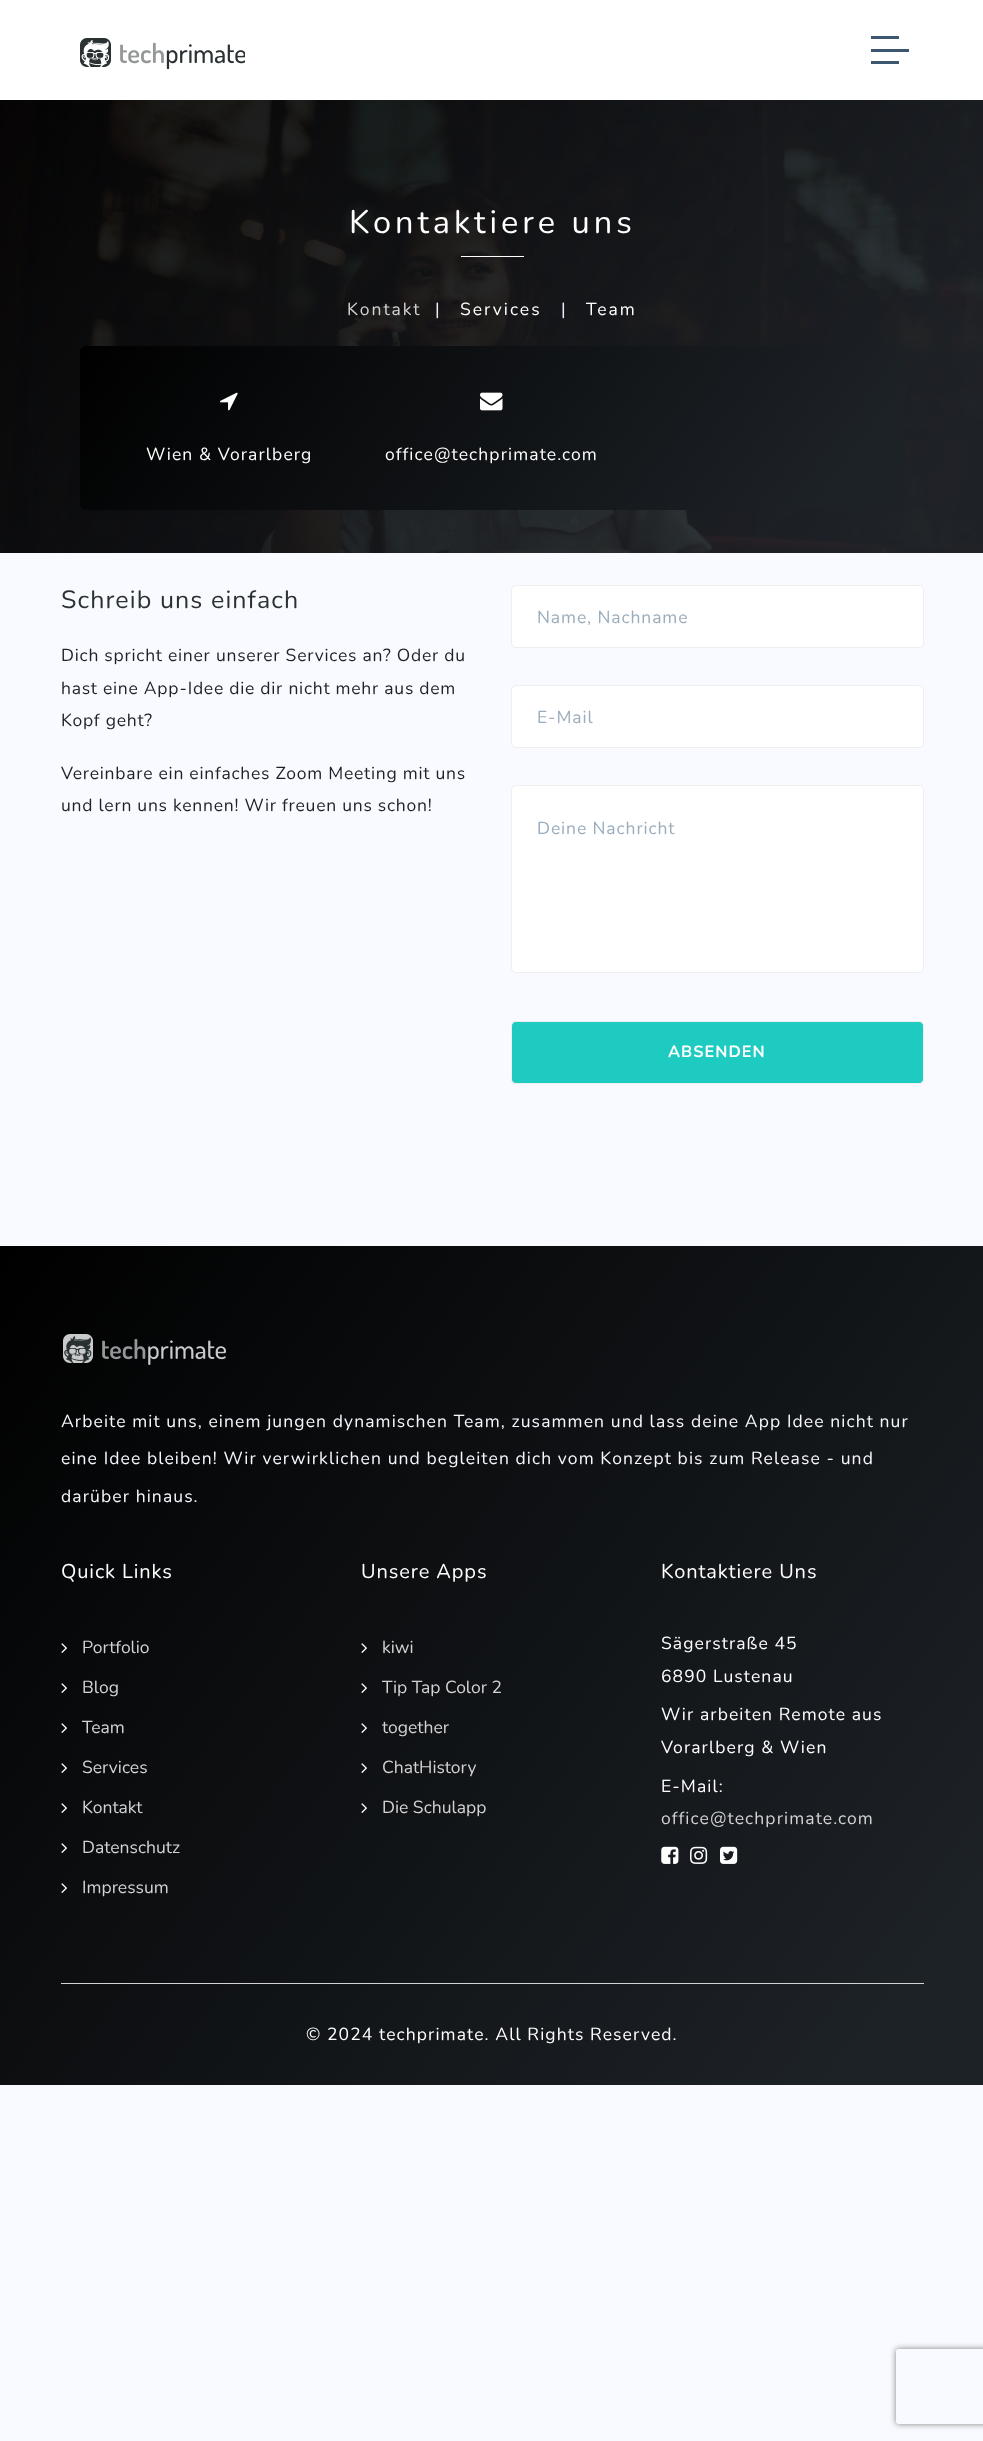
<svg xmlns="http://www.w3.org/2000/svg" width="983" height="2441">
<style>
.a{font:32.5px Nunito;letter-spacing:4px;fill:#fff}
.b{font:17.5px Nunito;letter-spacing:2px;fill:#d3d3d3}
.c{font:17.5px Nunito;letter-spacing:2px;fill:#edeefd}
.d{font:17.5px Nunito;letter-spacing:2px;fill:#fff}
.e{font:17.5px Nunito;letter-spacing:1.1px;fill:#fff}
.f{font:25px Nunito;letter-spacing:1.1px;fill:#2a3132}
.g{font:17.5px Nunito;letter-spacing:0.75px;fill:#1d2227}
.h{font:17.5px Nunito;letter-spacing:0.9px;fill:#9badbd}
.i{font:bold 16.25px Nunito;letter-spacing:1px;fill:#fff}
.j{font:17.5px Nunito;letter-spacing:1.1px;fill:#f7f8ff}
.k{font:20px Nunito;letter-spacing:0.9px;fill:#fff}
.l{font:17.5px Nunito;fill:#d3d3d3}
.m{font:17.5px Nunito;letter-spacing:1.1px;fill:#d3d3d3}
</style>
<defs>
<linearGradient id="g1" gradientUnits="userSpaceOnUse" x1="190" y1="200" x2="795" y2="656"><stop offset="0" stop-color="#000"/><stop offset="0.91" stop-color="#1d2227"/></linearGradient>
<linearGradient id="g2" gradientUnits="userSpaceOnUse" x1="-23" y1="1277" x2="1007" y2="2054"><stop offset="0" stop-color="#000"/><stop offset="0.91" stop-color="#1d2227"/></linearGradient>
<clipPath id="clip1"><path d="M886 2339h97v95h-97zm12.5 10h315c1.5 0 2.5 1 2.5 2.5v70c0 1.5-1 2.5-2.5 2.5h-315c-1.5 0-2.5-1-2.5-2.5v-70c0-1.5 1-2.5 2.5-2.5z" clip-rule="evenodd"/></clipPath>
</defs>
<rect width="100%" height="100%" fill="#f9faff"/>
<path fill="#fff" d="M0 0h983v100H0z"/>
<image href="1.png" x="80" y="38" width="165" height="31"/>
<path fill="#3b566e" d="M871 49h38v3H871z"/>
<path fill="#3b566e" d="M871 36h28v3H871z"/>
<path fill="#3b566e" d="M871 61h28v3H871z"/>
<image href="2.png" x="0" y="100" width="983" height="453"/>
<path fill="#fff" d="M461 256h63v1H461z"/>
<rect fill="url(#g1)" x="80" y="346" width="825" height="164" rx="6"/>
<image href="3.png" x="220" y="392" width="18" height="19"/>
<image href="4.png" x="480" y="392" width="23" height="19"/>
<rect fill="#fff" stroke="#eee" x="511.5" y="585.5" width="412" height="62" rx="4.5"/>
<rect fill="#fff" stroke="#eee" x="511.5" y="685.5" width="412" height="62" rx="4.5"/>
<rect fill="#fff" stroke="#eee" x="511.5" y="785.5" width="412" height="187" rx="4.5"/>
<rect fill="#1ecbc0" stroke="#eee" x="511.5" y="1021.5" width="412" height="62" rx="4.5"/>
<path fill="url(#g2)" d="M0 1246h983v839H0z"/>
<image href="5.png" x="63" y="1334" width="163" height="31"/>
<image href="6.png" x="61" y="1643" width="6" height="10"/>
<image href="7.png" x="61" y="1683" width="6" height="10"/>
<image href="8.png" x="61" y="1723" width="6" height="10"/>
<image href="9.png" x="61" y="1763" width="6" height="10"/>
<image href="10.png" x="61" y="1803" width="6" height="10"/>
<image href="11.png" x="61" y="1843" width="6" height="10"/>
<image href="12.png" x="61" y="1883" width="6" height="10"/>
<image href="13.png" x="361" y="1643" width="6" height="10"/>
<image href="14.png" x="361" y="1683" width="6" height="10"/>
<image href="15.png" x="361" y="1723" width="6" height="10"/>
<image href="16.png" x="361" y="1763" width="6" height="10"/>
<image href="17.png" x="361" y="1803" width="6" height="10"/>
<image href="18.png" x="661" y="1846" width="18" height="18"/>
<image href="19.png" x="690" y="1846" width="18" height="18"/>
<image href="20.png" x="720" y="1846" width="18" height="18"/>
<path fill="#d3d3d3" d="M61 1983h863v1H61z"/>
<g clip-path="url(#clip1)">
<rect fill="#808080" filter="blur(3px)" x="896" y="2349" width="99" height="75" rx="2.5"/>
</g>
<text class="a" x="349" y="233">Kontaktiere uns</text>
<text class="b" x="347" y="315">Kontakt</text>
<text class="c" x="435" y="315">|</text>
<text class="d" x="460" y="315">Services</text>
<text class="c" x="561" y="315">|</text>
<text class="d" x="586" y="315">Team</text>
<text class="e" x="146" y="460">Wien &amp; Vorarlberg</text>
<text class="e" x="385" y="460">office@techprimate.com</text>
<text class="f" x="61" y="608">Schreib uns einfach</text>
<text class="g" x="61" y="661">Dich spricht einer unserer Services an? Oder du</text>
<text class="g" x="61" y="694">hast eine App-Idee die dir nicht mehr aus dem</text>
<text class="g" x="61" y="726">Kopf geht?</text>
<text class="g" x="61" y="779">Vereinbare ein einfaches Zoom Meeting mit uns</text>
<text class="g" x="61" y="811">und lern uns kennen! Wir freuen uns schon!</text>
<text class="h" x="537" y="623">Name, Nachname</text>
<text class="h" x="537" y="723">E-Mail</text>
<text class="h" x="537" y="834">Deine Nachricht</text>
<text class="i" x="668" y="1057">ABSENDEN</text>
<text class="j" x="61" y="1427">Arbeite mit uns, einem jungen dynamischen Team, zusammen und lass deine App Idee nicht nur</text>
<text class="j" x="61" y="1464">eine Idee bleiben! Wir verwirklichen und begleiten dich vom Konzept bis zum Release - und</text>
<text class="j" x="61" y="1502">darüber hinaus.</text>
<text class="k" x="61" y="1578">Quick Links</text>
<text class="l" x="82" y="1653">Portfolio</text>
<text class="l" x="82" y="1693">Blog</text>
<text class="l" x="82" y="1733">Team</text>
<text class="l" x="82" y="1773">Services</text>
<text class="l" x="82" y="1813">Kontakt</text>
<text class="l" x="82" y="1853">Datenschutz</text>
<text class="l" x="82" y="1893">Impressum</text>
<text class="k" x="361" y="1578">Unsere Apps</text>
<text class="l" x="382" y="1653">kiwi</text>
<text class="l" x="382" y="1693">Tip Tap Color 2</text>
<text class="l" x="382" y="1733">together</text>
<text class="l" x="382" y="1773">ChatHistory</text>
<text class="l" x="382" y="1813">Die Schulapp</text>
<text class="k" x="661" y="1578">Kontaktiere Uns</text>
<text class="e" x="661" y="1649">Sägerstraße 45</text>
<text class="e" x="661" y="1682">6890 Lustenau</text>
<text class="e" x="661" y="1720">Wir arbeiten Remote aus</text>
<text class="e" x="661" y="1753">Vorarlberg &amp; Wien</text>
<text class="e" x="661" y="1792">E-Mail:</text>
<text class="m" x="661" y="1824">office@techprimate.com</text>
<text class="e" x="306" y="2040">© 2024 techprimate. All Rights Reserved.</text>
</svg>
